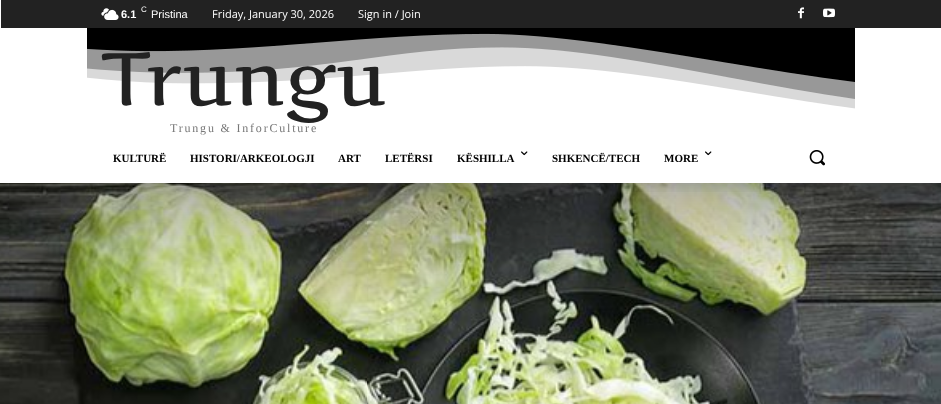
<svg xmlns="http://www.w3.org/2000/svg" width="941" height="404">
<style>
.a{font:bold 11px Liberation Sans;fill:#fff}
.b{font:8px Liberation Sans;fill:#fff}
.c{font:11px Liberation Sans;fill:#fff}
.d{font:11px Open Sans;fill:#fff}
.e{font:75px Artifika;fill:#222}
.f{font:12px Liberation Serif;letter-spacing:1.8px;fill:#777}
.g{font:bold 11px Liberation Serif;fill:#000}
</style>
<defs>
<clipPath id="clip1"><path d="M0 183h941v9H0z"/></clipPath>
</defs>
<rect width="100%" height="100%" fill="#fff"/>
<path fill="#222" d="M1 0h940v28H1z"/>
<image href="1.png" x="101" y="8" width="18" height="12"/>
<image href="2.png" x="798" y="7" width="6" height="12"/>
<image href="3.png" x="823" y="8" width="12" height="10"/>
<image href="4.png" x="87" y="28" width="768" height="81"/>
<image href="7.png" x="0" y="183" width="941" height="221"/>
<g clip-path="url(#clip1)">
<path fill="#00000014" filter="blur(4px)" d="M1 6h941v183H1z"/>
</g>
<image href="5.png" x="521" y="151" width="7" height="5"/>
<image href="5.png" x="705" y="151" width="7" height="5"/>
<image href="6.png" x="809" y="150" width="16" height="16"/>
<text class="a" x="121" y="18">6.1</text>
<text class="b" x="141" y="12">C</text>
<text class="c" x="151" y="18">Pristina</text>
<text class="d" x="212" y="18">Friday, January 30, 2026</text>
<text class="d" x="358" y="18">Sign in / Join</text>
<text class="e" x="101" y="105">Trungu</text>
<text class="f" x="170" y="132">Trungu &amp; InforCulture</text>
<text class="g" x="113" y="162">KULTURË</text>
<text class="g" x="190" y="162">HISTORI/ARKEOLOGJI</text>
<text class="g" x="338" y="162">ART</text>
<text class="g" x="385" y="162">LETËRSI</text>
<text class="g" x="457" y="162">KËSHILLA</text>
<text class="g" x="552" y="162">SHKENCË/TECH</text>
<text class="g" x="664" y="162">MORE</text>
</svg>
